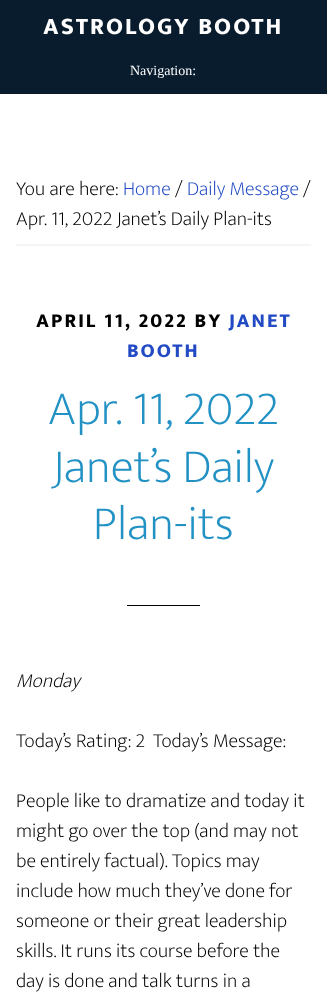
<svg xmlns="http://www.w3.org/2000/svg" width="327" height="995">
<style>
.a{font:800 24px Ek Mukta;letter-spacing:2px;fill:#fff}
.b{font:14px Liberation Serif;fill:#fff}
.c{font:200 20px Ek Mukta;fill:#000}
.d{font:200 20px Ek Mukta;fill:#214ac4}
.e{font:800 20px Ek Mukta;letter-spacing:2px;fill:#000}
.f{font:800 20px Ek Mukta;letter-spacing:2px;fill:#214ac4}
.g{font:200 48px Ek Mukta;fill:#2291c4}
.h{font:italic 200 20px Ek Mukta;fill:#000}
</style>
<rect width="100%" height="100%" fill="#fff"/>
<path fill="#091c2e" d="M0 0h327v94H0z"/>
<path fill="#f5f5f5" d="M16 244h295v2H16z"/>
<path fill="#000" d="M127 605h73v1H127z"/>
<text class="a" x="43" y="34">ASTROLOGY BOOTH</text>
<text class="b" x="130" y="75">Navigation:</text>
<text class="c" x="16" y="195">You are here:</text>
<text class="d" x="123" y="195">Home</text>
<text class="c" x="175" y="195">/</text>
<text class="d" x="187" y="195">Daily Message</text>
<text class="c" x="303" y="195">/</text>
<text class="c" x="16" y="225">Apr. 11, 2022 Janet’s Daily Plan-its</text>
<text class="e" x="36" y="327">APRIL 11, 2022 BY</text>
<text class="f" x="229" y="327">JANET</text>
<text class="f" x="127" y="357">BOOTH</text>
<text class="g" x="48" y="424">Apr. 11, 2022</text>
<text class="g" x="52" y="482">Janet’s Daily</text>
<text class="g" x="93" y="539">Plan-its</text>
<text class="h" x="16" y="687">Monday</text>
<text class="c" xml:space="preserve" x="16" y="747">Today’s Rating: 2  Today’s Message:</text>
<text class="c" x="16" y="807">People like to dramatize and today it</text>
<text class="c" x="16" y="837">might go over the top (and may not</text>
<text class="c" x="16" y="867">be entirely factual). Topics may</text>
<text class="c" x="16" y="897">include how much they’ve done for</text>
<text class="c" x="16" y="927">someone or their great leadership</text>
<text class="c" x="16" y="957">skills. It runs its course before the</text>
<text class="c" x="16" y="987">day is done and talk turns in a</text>
</svg>
